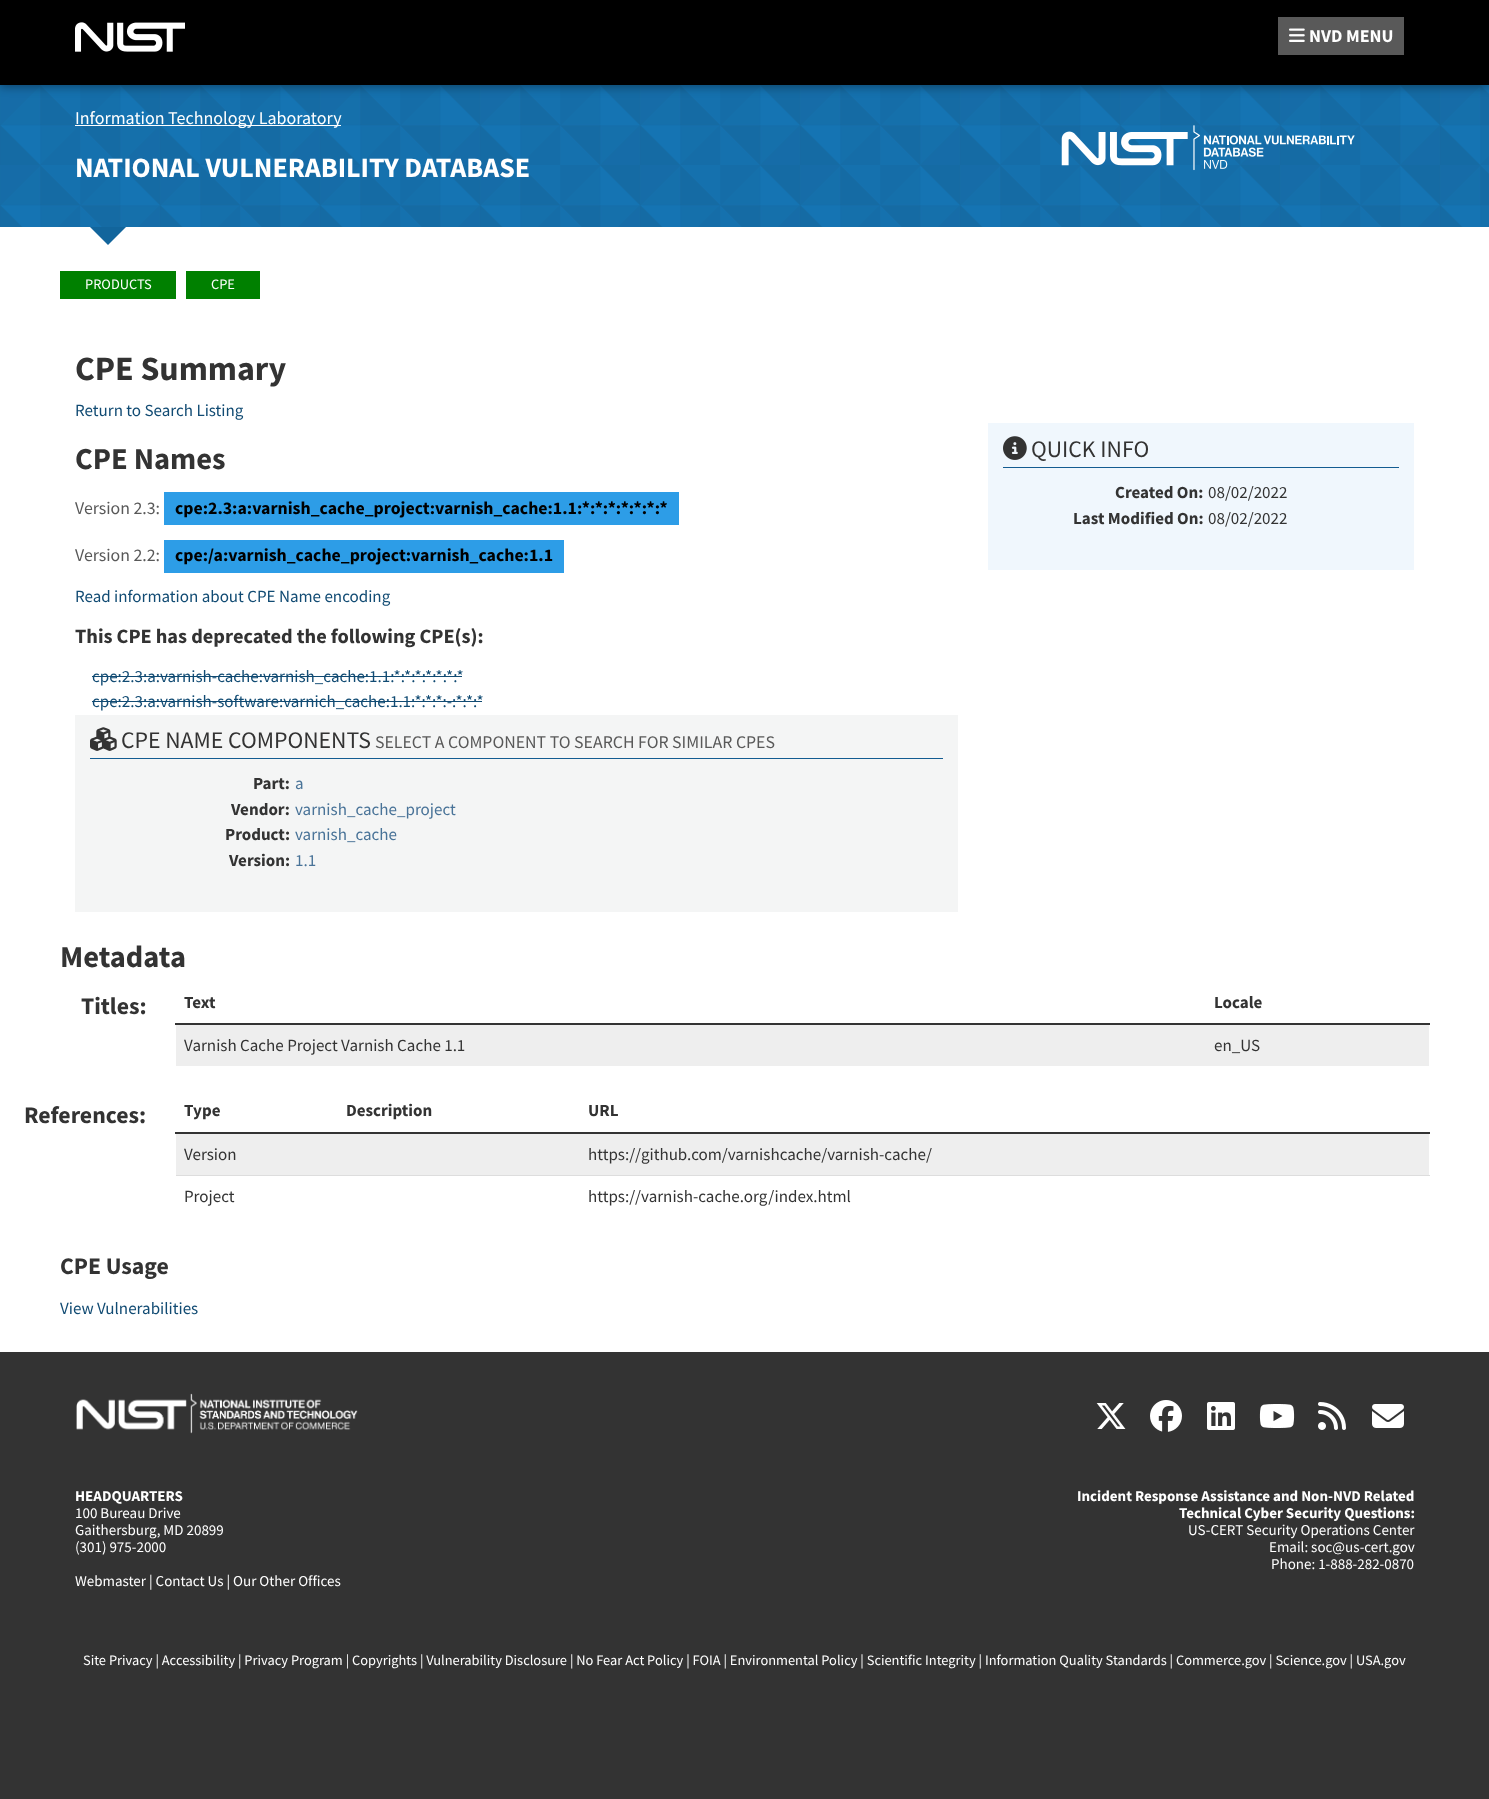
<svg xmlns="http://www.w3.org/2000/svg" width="1489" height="1799">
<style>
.a{font:bold 18px Source Sans Pro;fill:#fff}
.b{font:18px Source Sans Pro;fill:#fff}
.c{font:bold 28px Source Sans Pro;fill:#fff}
.d{font:14.4px Source Sans Pro;fill:#fff}
.e{font:bold 34px Source Sans Pro;fill:#333}
.f{font:17px Source Sans Pro;fill:#114b73}
.g{font:bold 30.5px Source Sans Pro;fill:#333}
.h{font:17.8px Source Sans Pro;fill:#595959}
.i{font:bold 17.8px Source Sans Pro;fill:#000}
.j{font:bold 20.35px Source Sans Pro;fill:#333}
.k{font:23.75px Source Sans Pro;fill:#333}
.l{font:bold 17px Source Sans Pro;fill:#333}
.m{font:17px Source Sans Pro;fill:#497398}
.n{font:17px Source Sans Pro;fill:#333}
.o{font:bold 23.75px Source Sans Pro;fill:#333}
.p{font:bold 15px Source Sans Pro;fill:#fff}
.q{font:15px Source Sans Pro;fill:#fff}
</style>
<rect width="100%" height="100%" fill="#fff"/>
<path fill="#1574b3" d="M0 85h1489v142H0z"/>
<image href="3.png" x="0" y="85" width="1489" height="142"/>
<path fill="#0000005c" filter="blur(5px)" d="M0 -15h1489v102H0z"/>
<path fill="#000" d="M0 0h1489v85H0z"/>
<image href="1.png" x="75" y="22" width="110" height="30"/>
<path fill="#595959" d="M1278 17h126v38H1278z"/>
<image href="2.png" x="1289" y="28" width="16" height="14"/>
<path fill="#fff" d="M75 125h266v1H75z"/>
<image href="4.png" x="1061" y="125" width="294" height="46"/>
<path fill="#12659c" d="M90 227h36l-18 18z"/>
<path fill="#008000" d="M60 271h116v28H60z"/>
<path fill="#008000" d="M186 271h74v28H186z"/>
<path fill="#2d9de7" d="M164 492h515v33H164z"/>
<path fill="#2d9de7" d="M164 540h400v33H164z"/>
<path fill="#114b73" d="M92 676h370v1H92z"/>
<path fill="#114b73" d="M92 701h390v1H92z"/>
<path fill="#f4f5f5" d="M75 715h883v197H75z"/>
<path fill="#135c91" d="M90 758h853v1H90z"/>
<image href="5.png" x="90" y="727" width="27" height="24"/>
<path fill="#f0f7fd" d="M988 423h426v147H988z"/>
<path fill="#135c91" d="M1003 467h396v1H1003z"/>
<image href="6.png" x="1003" y="436" width="24" height="24"/>
<path fill="#333" d="M175 1023h1255v2H175z"/>
<path fill="#eee" d="M176 1025h1253v41H176z"/>
<path fill="#333" d="M175 1132h1255v2H175z"/>
<path fill="#eee" d="M176 1134h1253v41H176z"/>
<path fill="#ddd" d="M176 1175h1254v1H176z"/>
<path fill="#333" d="M0 1352h1489v447H0z"/>
<image href="7.png" x="76" y="1393" width="282" height="41"/>
<image href="8.png" x="1096" y="1403" width="30" height="26"/>
<image href="9.png" x="1150" y="1400" width="32" height="32"/>
<image href="10.png" x="1207" y="1402" width="28" height="28"/>
<image href="11.png" x="1259" y="1404" width="36" height="24"/>
<image href="12.png" x="1318" y="1402" width="28" height="28"/>
<image href="13.png" x="1372" y="1404" width="32" height="24"/>
<text class="a" x="1309" y="42">NVD MENU</text>
<text class="b" x="75" y="124">Information Technology Laboratory</text>
<text class="c" x="75" y="177">NATIONAL VULNERABILITY DATABASE</text>
<text class="d" x="85" y="289">PRODUCTS</text>
<text class="d" x="211" y="289">CPE</text>
<text class="e" x="75" y="380">CPE Summary</text>
<text class="f" x="75" y="416">Return to Search Listing</text>
<text class="g" x="75" y="469">CPE Names</text>
<text class="h" x="75" y="514">Version 2.3:</text>
<text class="i" x="175" y="514">cpe:2.3:a:varnish_cache_project:varnish_cache:1.1:*:*:*:*:*:*:*</text>
<text class="h" x="75" y="561">Version 2.2:</text>
<text class="i" x="175" y="561">cpe:/a:varnish_cache_project:varnish_cache:1.1</text>
<text class="f" x="75" y="602">Read information about CPE Name encoding</text>
<text class="j" x="75" y="643">This CPE has deprecated the following CPE(s):</text>
<text class="f" x="92" y="682">cpe:2.3:a:varnish-cache:varnish_cache:1.1:*:*:*:*:*:*:*</text>
<text class="f" x="92" y="707">cpe:2.3:a:varnish-software:varnich_cache:1.1:*:*:*:-:*:*:*</text>
<text class="k" x="121" y="748">CPE NAME COMPONENTS</text>
<text class="h" x="375" y="748">SELECT A COMPONENT TO SEARCH FOR SIMILAR CPES</text>
<text class="l" x="253" y="789">Part:</text>
<text class="m" x="295" y="789">a</text>
<text class="l" x="231" y="815">Vendor:</text>
<text class="m" x="295" y="815">varnish_cache_project</text>
<text class="l" x="225" y="840">Product:</text>
<text class="m" x="295" y="840">varnish_cache</text>
<text class="l" x="229" y="866">Version:</text>
<text class="m" x="295" y="866">1.1</text>
<text class="k" x="1031" y="457">QUICK INFO</text>
<text class="l" x="1115" y="498">Created On:</text>
<text class="n" x="1208" y="498">08/02/2022</text>
<text class="l" x="1073" y="524">Last Modified On:</text>
<text class="n" x="1208" y="524">08/02/2022</text>
<text class="g" x="60" y="967">Metadata</text>
<text class="o" x="81" y="1014">Titles:</text>
<text class="l" x="184" y="1008">Text</text>
<text class="l" x="1214" y="1008">Locale</text>
<text class="n" x="184" y="1051">Varnish Cache Project Varnish Cache 1.1</text>
<text class="n" x="1214" y="1051">en_US</text>
<text class="o" x="24" y="1123">References:</text>
<text class="l" x="184" y="1116">Type</text>
<text class="l" x="346" y="1116">Description</text>
<text class="l" x="588" y="1116">URL</text>
<text class="n" x="184" y="1160">Version</text>
<text class="n" x="588" y="1160">https://github.com/varnishcache/varnish-cache/</text>
<text class="n" x="184" y="1202">Project</text>
<text class="n" x="588" y="1202">https://varnish-cache.org/index.html</text>
<text class="o" x="60" y="1274">CPE Usage</text>
<text class="f" x="60" y="1314">View Vulnerabilities</text>
<text class="p" x="75" y="1501">HEADQUARTERS</text>
<text class="q" x="75" y="1518">100 Bureau Drive</text>
<text class="q" x="75" y="1535">Gaithersburg, MD 20899</text>
<text class="q" x="75" y="1552">(301) 975-2000</text>
<text class="q" x="75" y="1586">Webmaster | Contact Us | Our Other Offices</text>
<text class="p" x="1077" y="1501">Incident Response Assistance and Non-NVD Related</text>
<text class="p" x="1179" y="1518">Technical Cyber Security Questions:</text>
<text class="q" x="1188" y="1535">US-CERT Security Operations Center</text>
<text class="q" x="1269" y="1552">Email: soc@us-cert.gov</text>
<text class="q" x="1271" y="1569">Phone: 1-888-282-0870</text>
<text class="d" x="83" y="1665">Site Privacy | Accessibility | Privacy Program | Copyrights | Vulnerability Disclosure | No Fear Act Policy | FOIA | Environmental Policy | Scientific Integrity | Information Quality Standards | Commerce.gov | Science.gov | USA.gov</text>
</svg>
